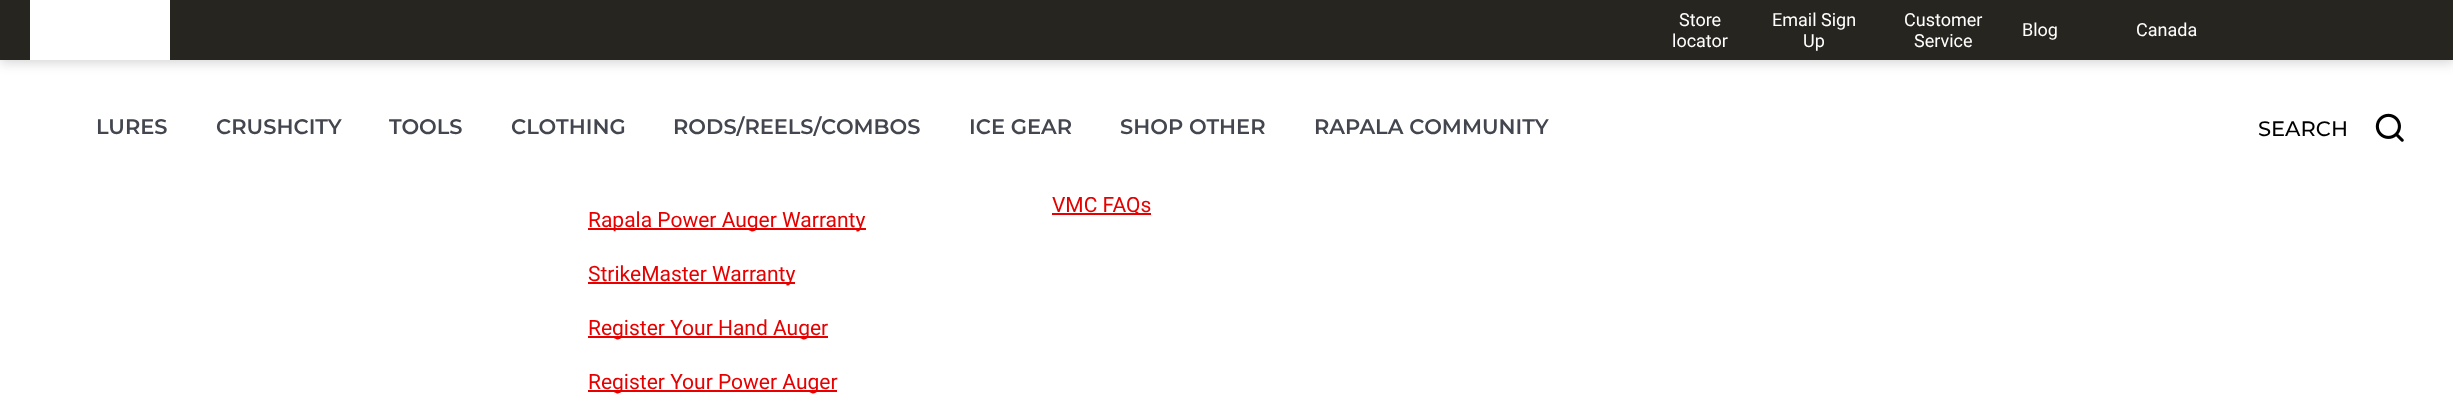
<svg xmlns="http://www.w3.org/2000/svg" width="2453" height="417">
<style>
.a{font:18px Roboto;fill:#fff}
.b{font:100 21px 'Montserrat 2';fill:#43464e}
.c{font:100 21px Montserrat;fill:#000}
.d{font:21px Roboto;fill:#e60000}
</style>
<rect width="100%" height="100%" fill="#fff"/>
<path fill="#32323233" filter="blur(6px)" d="M0 3h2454v60H0z"/>
<path fill="#27251f" d="M0 0h2453v60H0z"/>
<path fill="#fff" d="M30 0h140v60H30z"/>
<image href="1.png" x="2375" y="113" width="29" height="29"/>
<path fill="#e60000" d="M1052 213h99v2H1052z"/>
<path fill="#e60000" d="M588 228h278v2H588z"/>
<path fill="#e60000" d="M588 282h207v2H588z"/>
<path fill="#e60000" d="M588 336h240v2H588z"/>
<path fill="#e60000" d="M588 390h249v2H588z"/>
<text class="a" x="1679" y="26">Store</text>
<text class="a" x="1672" y="47">locator</text>
<text class="a" x="1772" y="26">Email Sign</text>
<text class="a" x="1803" y="47">Up</text>
<text class="a" x="1904" y="26">Customer</text>
<text class="a" x="1914" y="47">Service</text>
<text class="a" x="2022" y="36">Blog</text>
<text class="a" x="2136" y="36">Canada</text>
<text class="b" x="96" y="134">LURES</text>
<text class="b" x="216" y="134">CRUSHCITY</text>
<text class="b" x="389" y="134">TOOLS</text>
<text class="b" x="511" y="134">CLOTHING</text>
<text class="b" x="673" y="134">RODS/REELS/COMBOS</text>
<text class="b" x="969" y="134">ICE GEAR</text>
<text class="b" x="1120" y="134">SHOP OTHER</text>
<text class="b" x="1314" y="134">RAPALA COMMUNITY</text>
<text class="c" x="2258" y="136">SEARCH</text>
<text class="d" x="1052" y="212">VMC FAQs</text>
<path fill="#fff" d="M1089 196h45v1H1089z"/>
<text class="d" x="588" y="227">Rapala Power Auger Warranty</text>
<text class="d" x="588" y="281">StrikeMaster Warranty</text>
<text class="d" x="588" y="335">Register Your Hand Auger</text>
<text class="d" x="588" y="389">Register Your Power Auger</text>
</svg>
